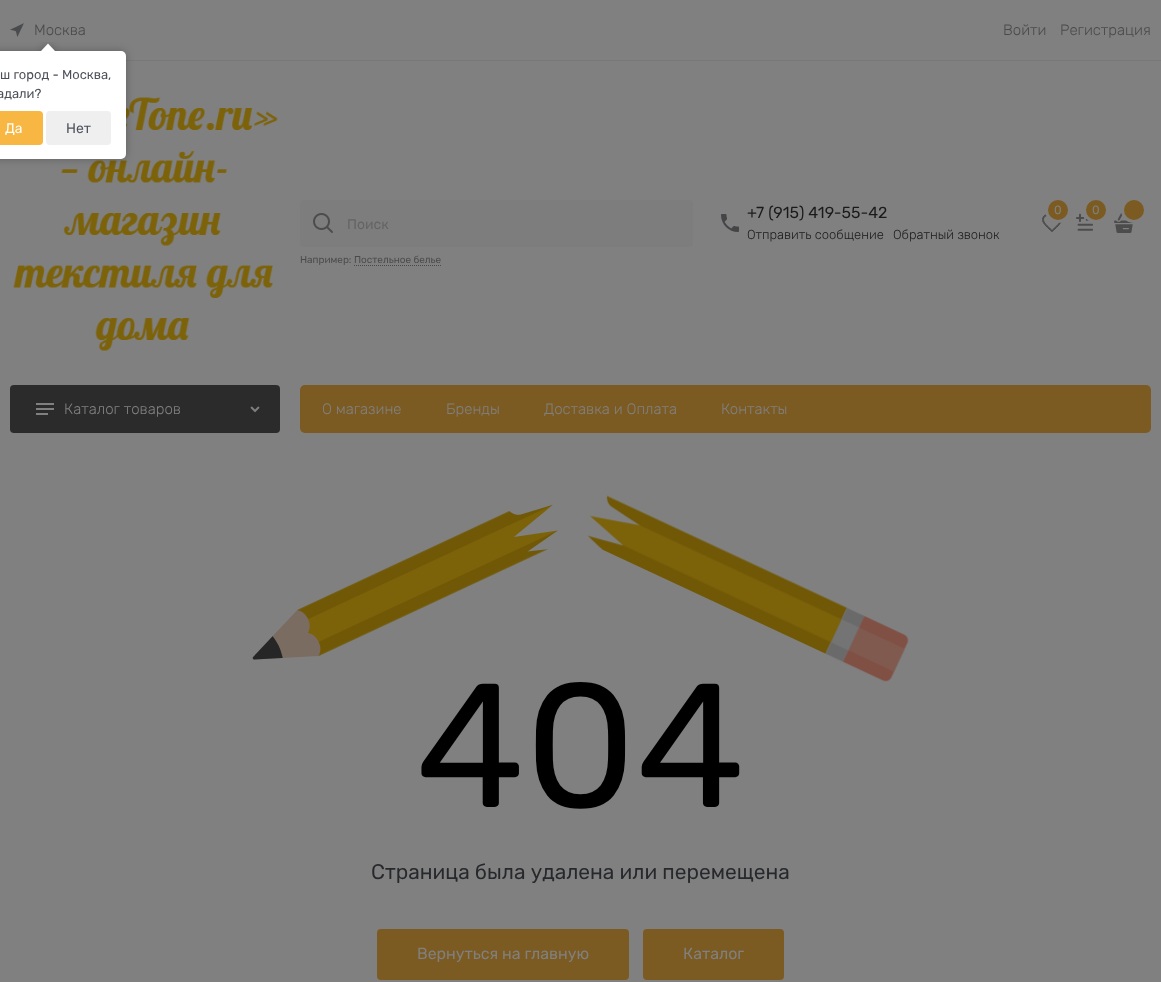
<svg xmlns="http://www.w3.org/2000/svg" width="1161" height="982">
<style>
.a{font:300 15px Rubik;fill:#4b4a4a}
.b{font:14px Rubik;fill:#646466}
.c{font:10px Rubik;fill:#4b4a4a}
.d{font:16px Rubik;fill:#1a1a1a}
.e{font:300 13px Rubik;fill:#1a1a1a}
.f{font:12px Rubik;fill:#808080}
.g{font:300 15px Rubik;fill:#808080}
.h{font:176px Rubik;fill:#000}
.i{font:21px Rubik;fill:#26282c}
.j{font:16px Rubik;fill:#808080}
.k{font:13px Rubik;fill:#4b4f58}
.l{font:14px Rubik;fill:#fff}
.m{font:14px Rubik;fill:#4b4f58}
</style>
<defs>
<clipPath id="clip1"><path d="M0 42h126v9H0z"/></clipPath>
<clipPath id="clip2"><path d="M0 42h126v9H0z"/></clipPath>
</defs>
<rect width="100%" height="100%" fill="#808080"/>
<path fill="#78787a" d="M126 60h1035v1H126z"/>
<image href="1.png" x="10" y="23" width="14" height="14"/>
<image href="2.png" x="13" y="97" width="265" height="254"/>
<rect fill="#7d7d7d" x="300" y="200" width="393" height="47" rx="4"/>
<image href="3.png" x="313" y="213" width="20" height="20"/>
<path fill="none" stroke="#4b4a4a" stroke-dasharray="1 1" d="M354 265.5h87"/>
<image href="4.png" x="721" y="214" width="18" height="18"/>
<image href="5.png" x="1042" y="214" width="20" height="18"/>
<circle fill="#7c5b22" stroke="#808080" stroke-width="3" cx="1058" cy="210" r="11.5"/>
<image href="6.png" x="1076" y="213" width="17" height="18"/>
<circle fill="#7c5b22" stroke="#808080" stroke-width="3" cx="1096" cy="210" r="11.5"/>
<image href="7.png" x="1114" y="213" width="20" height="20"/>
<circle fill="#7c5b22" stroke="#808080" stroke-width="3" cx="1134" cy="210" r="11.5"/>
<rect fill="#2a2b2a" x="10" y="385" width="270" height="48" rx="4"/>
<image href="8.png" x="36" y="403" width="18" height="12"/>
<image href="9.png" x="250" y="406" width="10" height="7"/>
<rect fill="#7c5b22" x="300" y="385" width="851" height="48" rx="5"/>
<image href="10.png" x="252" y="495" width="657" height="187"/>
<rect fill="#7c5b22" x="377" y="929" width="252" height="51" rx="4"/>
<rect fill="#7c5b22" x="643" y="929" width="141" height="51" rx="4"/>
<rect fill="#00000040" filter="blur(4.5px)" x="-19" y="51" width="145" height="108" rx="5"/>
<rect fill="#fff" x="-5" y="51" width="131" height="108" rx="5"/>
<g clip-path="url(#clip1)">
<path fill="#00000040" filter="blur(4.5px)" d="M43 46h10v10H43z"/>
</g>
<g clip-path="url(#clip2)">
<path fill="#fff" d="M48 43.5l7 7.5l-7 7l-7-7z"/>
</g>
<rect fill="#f8b643" x="-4" y="111" width="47" height="34" rx="4"/>
<rect fill="#efefef" x="46" y="111" width="65" height="34" rx="4"/>
<text class="a" x="34" y="35">Москва</text>
<text class="a" x="1003" y="35">Войти</text>
<text class="a" x="1060" y="35">Регистрация</text>
<text class="b" x="347" y="229">Поиск</text>
<text class="c" x="300" y="263">Например: Постельное белье</text>
<text class="d" x="747" y="218">+7 (915) 419-55-42</text>
<text class="e" x="747" y="239">Отправить сообщение</text>
<text class="e" x="893" y="239">Обратный звонок</text>
<text class="f" x="1054" y="214">0</text>
<text class="f" x="1092" y="214">0</text>
<text class="g" x="64" y="414">Каталог товаров</text>
<text class="g" x="322" y="414">О магазине</text>
<text class="g" x="446" y="414">Бренды</text>
<text class="g" x="544" y="414">Доставка и Оплата</text>
<text class="g" x="721" y="414">Контакты</text>
<text class="h" x="416" y="807">404</text>
<text class="i" x="371" y="879">Страница была удалена или перемещена</text>
<text class="j" x="417" y="959">Вернуться на главную</text>
<text class="j" x="683" y="959">Каталог</text>
<text class="k" x="0" y="79">ш город - Москва,</text>
<text class="k" x="-3" y="98">адали?</text>
<text class="l" x="5" y="133">Да</text>
<text class="m" x="66" y="133">Нет</text>
</svg>
